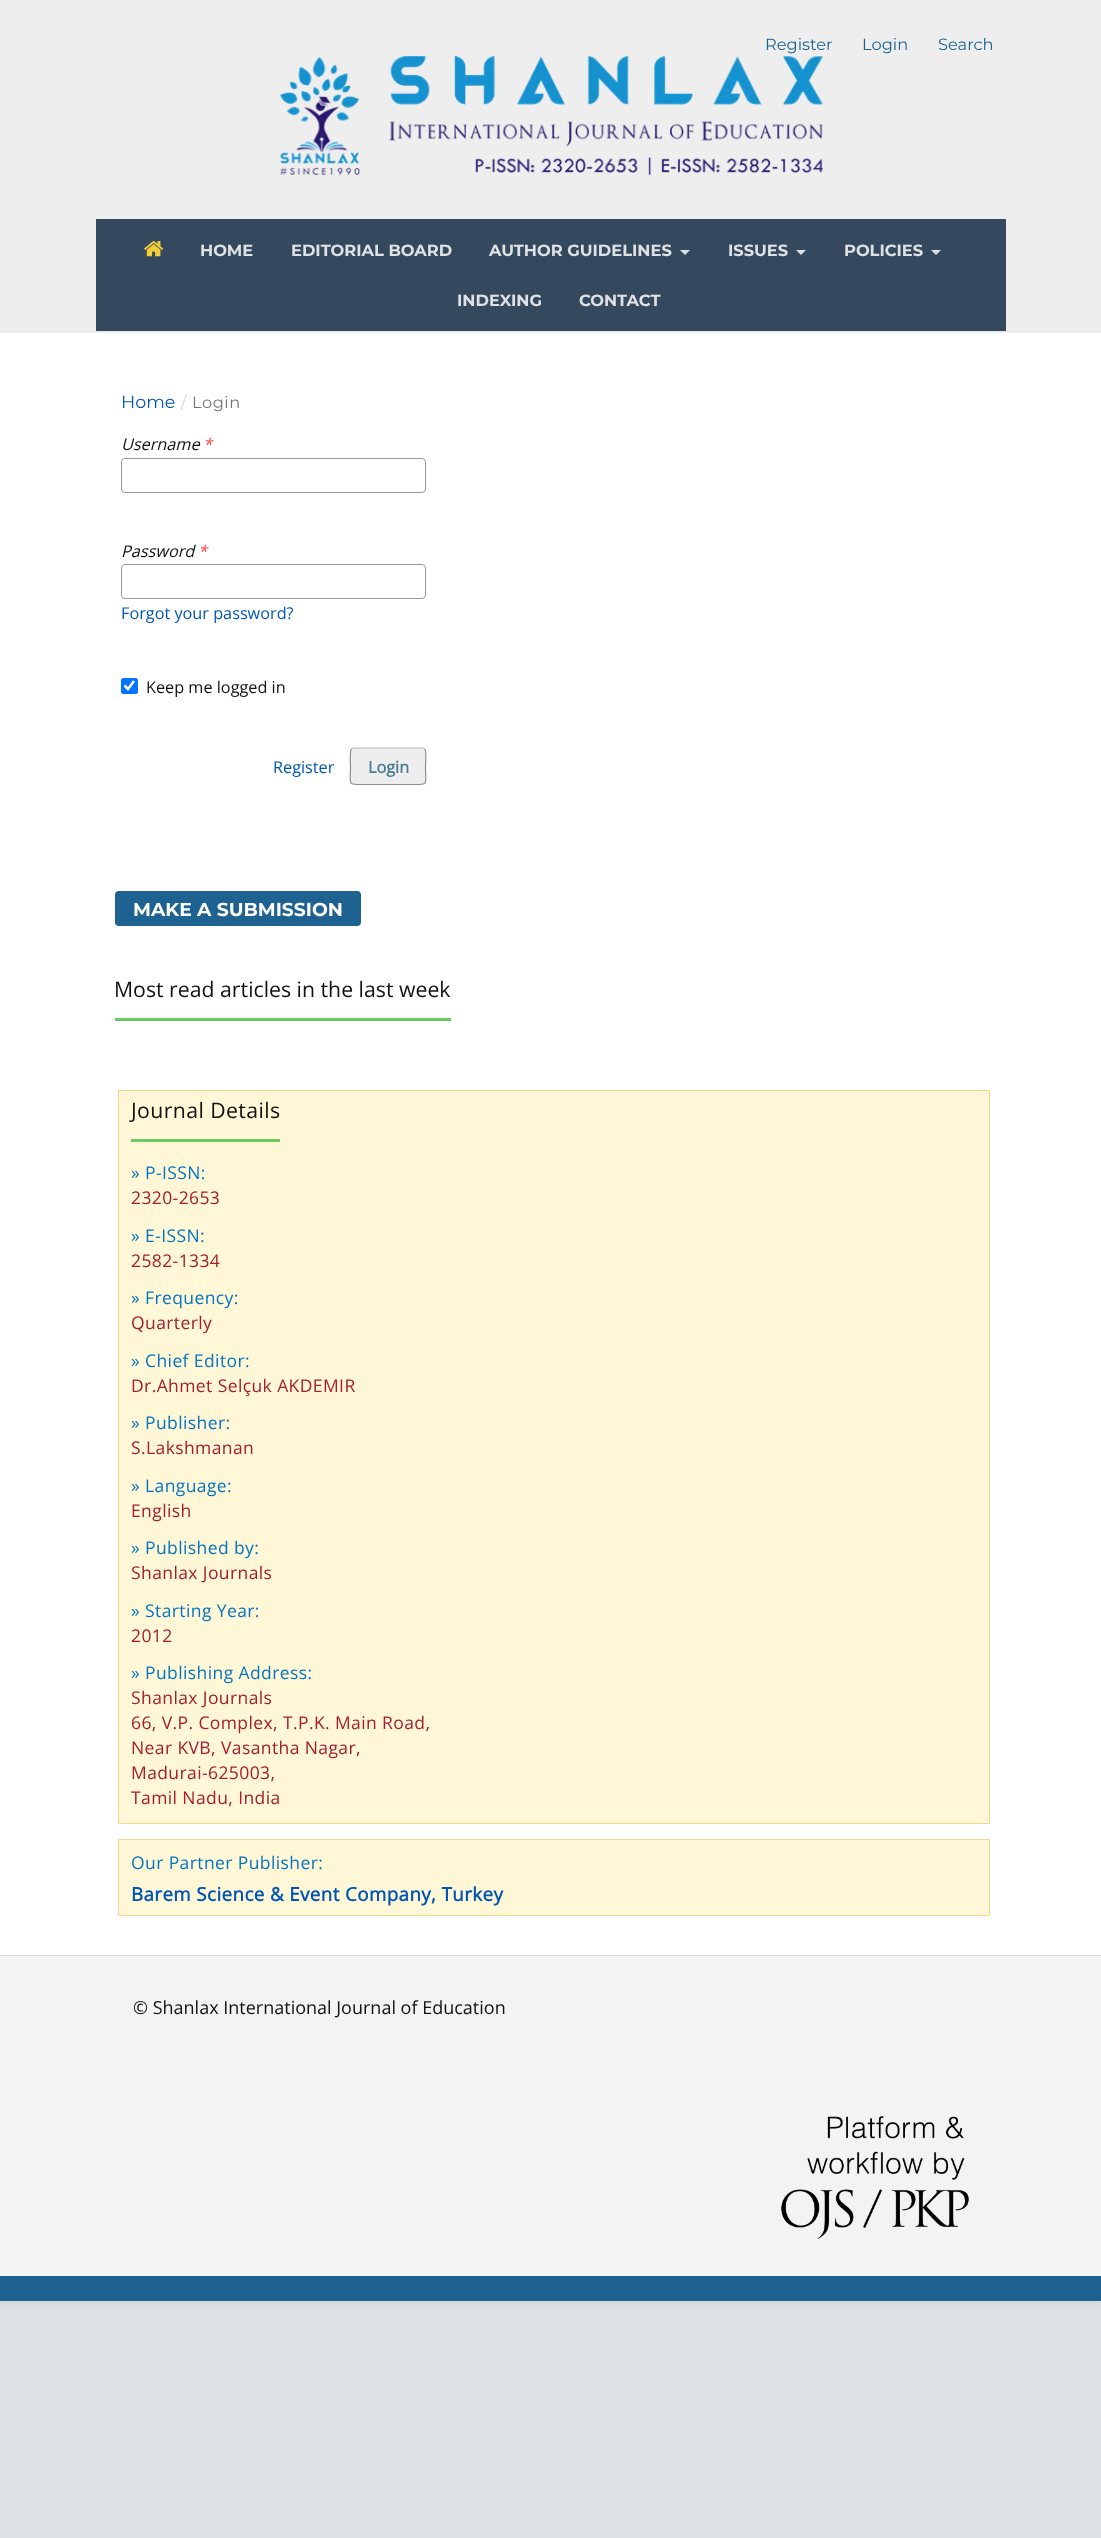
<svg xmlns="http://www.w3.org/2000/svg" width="1101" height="2538">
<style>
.a{font:16.25px Montserrat;fill:#1e6292}
.b{font:bold 16.25px Montserrat;fill:#dee2e5}
.c{font:17.5px Montserrat;fill:#0056b3}
.d{font:16.25px Montserrat;fill:#d6d6d6}
.e{font:16.25px Montserrat;letter-spacing:0.5px;fill:#757575}
.f{font:italic 16.25px Open Sans;fill:#111}
.g{font:italic 16.25px Open Sans;fill:#ff4040}
.h{font:16.25px Open Sans;fill:#0056b3}
.i{font:16.25px Open Sans;fill:#111}
.j{font:bold 16.25px Open Sans;fill:#4b7d92}
.k{font:bold 18.75px Montserrat;fill:#fff}
.l{font:21.25px Open Sans;fill:#111}
.m{font:21.25px Open Sans;letter-spacing:0.4px;fill:#111}
.n{font:17.5px Open Sans;letter-spacing:0.4px;fill:#0276c3}
.o{font:17.5px Open Sans;letter-spacing:0.4px;fill:#a41d31}
.p{font:bold 18.75px Open Sans;letter-spacing:0.4px;fill:#0056b3}
.q{font:18px Open Sans;fill:#111}
</style>
<rect width="100%" height="100%" fill="#dee2e5"/>
<path fill="#0000001a" filter="blur(6px)" d="M0 0h1101v2301H0z"/>
<path fill="#fff" d="M0 333h1101v1622H0z"/>
<path fill="#eee" d="M0 0h1101v333H0z"/>
<path fill="#e6e6e6" d="M0 331h1101v1H0z"/>
<image href="1.png" x="279" y="56" width="544" height="119"/>
<path fill="#34495e" d="M96 219h910v112H96z"/>
<image href="2.png" x="144" y="241" width="20" height="16"/>
<path fill="#dee2e5" d="M680 250h10l-5 5z"/>
<path fill="#dee2e5" d="M796 250h10l-5 5z"/>
<path fill="#dee2e5" d="M931 250h10l-5 5z"/>
<rect fill="none" stroke="#999" x="121.5" y="458.5" width="304" height="34" rx="3.5"/>
<rect fill="none" stroke="#999" x="121.5" y="564.5" width="304" height="34" rx="3.5"/>
<rect fill="#0075ff" x="121" y="678" width="17" height="16" rx="2.5"/>
<path fill="none" stroke="#fff" stroke-width="2.6" d="M124.5 685.5l3.5 3.5l6-8"/>
<rect fill="#eee" x="350" y="748" width="76" height="37" rx="4"/>
<path fill="none" stroke="#bbb" stroke-width="1.2" d="M351.5 749l2-1h69.5l1.5 1"/>
<path fill="none" stroke="#00000066" stroke-width="1.2" d="M424.5 749c2.5 2 1 14 1 17c0 20 4 18.5-14.5 18.5h-46c-18.5 0-14.5 1.5-14.5-18.5c0-3-1-15 1-17"/>
<rect fill="#1e6292" x="115" y="891" width="246" height="35" rx="4"/>
<path fill="#69ca62" d="M115 1018h336v3H115z"/>
<path fill="#fff7d6" stroke="#eed693" d="M118.5 1090.5h871v733H118.5z"/>
<path fill="#69ca62" d="M131 1139h149v3H131z"/>
<path fill="#fff7d6" stroke="#eed693" d="M118.5 1839.5h871v76H118.5z"/>
<path fill="#f3f3f3" d="M0 1956h1101v320H0z"/>
<path fill="#ddd" d="M0 1955h1101v1H0z"/>
<path fill="#1e6292" d="M0 2276h1101v25H0z"/>
<image href="3.png" x="781" y="2116" width="188" height="123"/>
<text class="a" x="765" y="50">Register</text>
<text class="a" x="862" y="50">Login</text>
<text class="a" x="938" y="50">Search</text>
<text class="b" x="200" y="256">HOME</text>
<text class="b" x="291" y="256">EDITORIAL BOARD</text>
<text class="b" x="489" y="256">AUTHOR GUIDELINES</text>
<text class="b" x="728" y="256">ISSUES</text>
<text class="b" x="844" y="256">POLICIES</text>
<text class="b" x="457" y="306">INDEXING</text>
<text class="b" x="579" y="306">CONTACT</text>
<text class="c" x="121" y="408">Home</text>
<text class="d" x="181" y="408">/</text>
<text class="e" x="192" y="408">Login</text>
<text class="f" x="121" y="450">Username</text>
<text class="g" x="203" y="450">*</text>
<text class="f" x="121" y="557">Password</text>
<text class="g" x="198" y="557">*</text>
<text class="h" x="121" y="619">Forgot your password?</text>
<text class="i" x="146" y="693">Keep me logged in</text>
<text class="h" x="273" y="773">Register</text>
<text class="j" x="368" y="773">Login</text>
<text class="k" x="133" y="916">MAKE A SUBMISSION</text>
<text class="l" x="114" y="997">Most read articles in the last week</text>
<text class="m" x="131" y="1118">Journal Details</text>
<text class="n" x="131" y="1179">» P-ISSN:</text>
<text class="o" x="131" y="1204">2320-2653</text>
<text class="n" x="131" y="1242">» E-ISSN:</text>
<text class="o" x="131" y="1267">2582-1334</text>
<text class="n" x="131" y="1304">» Frequency:</text>
<text class="o" x="131" y="1329">Quarterly</text>
<text class="n" x="131" y="1367">» Chief Editor:</text>
<text class="o" x="131" y="1392">Dr.Ahmet Selçuk AKDEMIR</text>
<text class="n" x="131" y="1429">» Publisher:</text>
<text class="o" x="131" y="1454">S.Lakshmanan</text>
<text class="n" x="131" y="1492">» Language:</text>
<text class="o" x="131" y="1517">English</text>
<text class="n" x="131" y="1554">» Published by:</text>
<text class="o" x="131" y="1579">Shanlax Journals</text>
<text class="n" x="131" y="1617">» Starting Year:</text>
<text class="o" x="131" y="1642">2012</text>
<text class="n" x="131" y="1679">» Publishing Address:</text>
<text class="o" x="131" y="1704">Shanlax Journals</text>
<text class="o" x="131" y="1729">66, V.P. Complex, T.P.K. Main Road,</text>
<text class="o" x="131" y="1754">Near KVB, Vasantha Nagar,</text>
<text class="o" x="131" y="1779">Madurai-625003,</text>
<text class="o" x="131" y="1804">Tamil Nadu, India</text>
<text class="n" x="131" y="1869">Our Partner Publisher:</text>
<text class="p" x="131" y="1901">Barem Science &amp; Event Company, Turkey</text>
<text class="q" x="133" y="2014">© Shanlax International Journal of Education</text>
</svg>
